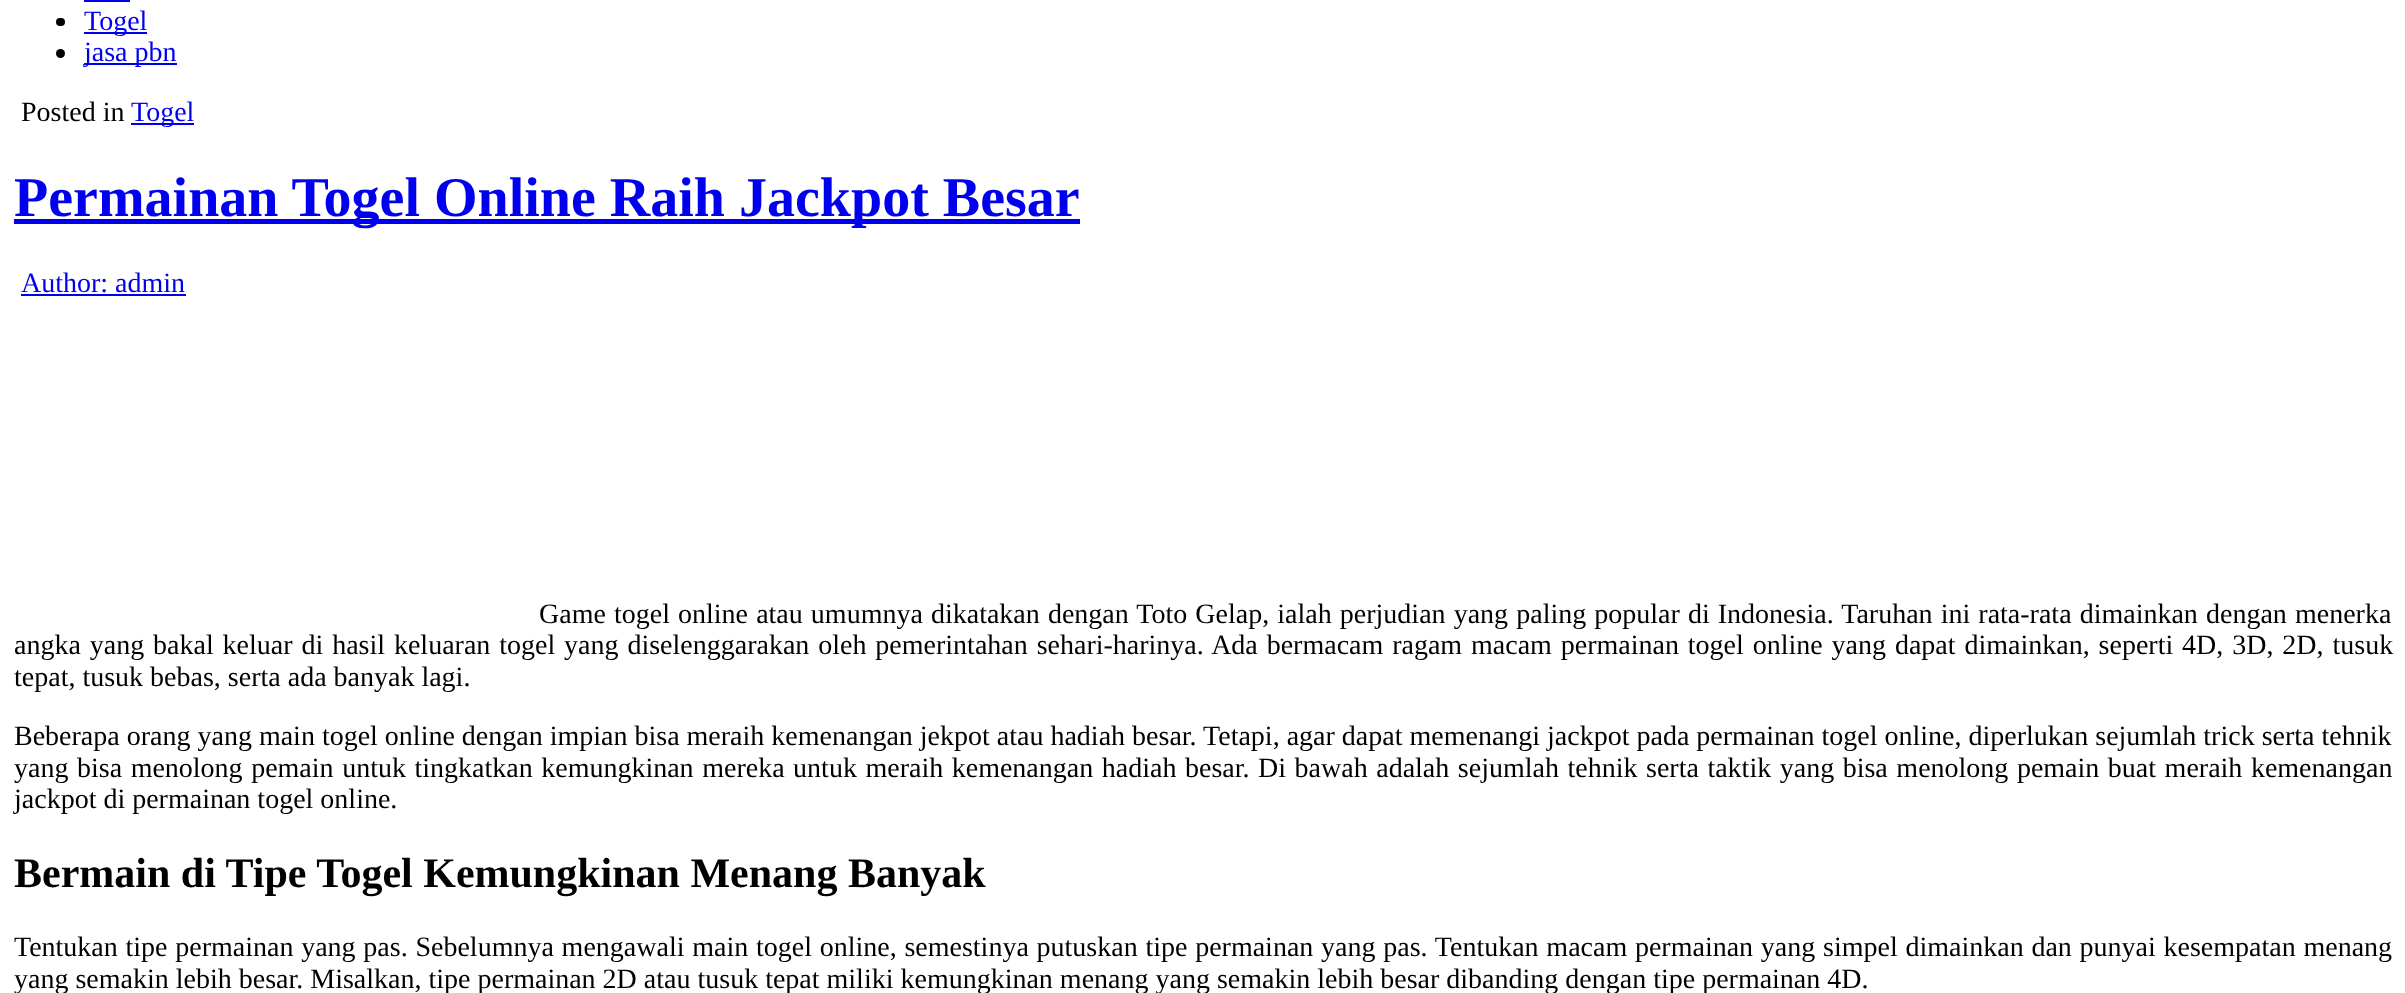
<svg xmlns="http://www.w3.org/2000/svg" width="2405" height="993">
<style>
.a{font:28px Liberation Serif;fill:#00e}
.b{font:28px Liberation Serif;fill:#000}
.c{font:bold 56px Liberation Serif;fill:#00e}
.d{font:bold 42px Liberation Serif;fill:#000}
</style>
<rect width="100%" height="100%" fill="#fff"/>
<path fill="#00e" d="M84 0h46v2H84z"/>
<rect fill="#000" x="56" y="18" width="9" height="8" rx="4"/>
<path fill="#00e" d="M84 32h63v2H84z"/>
<circle fill="#000" cx="60.5" cy="53.5" r="4.5"/>
<path fill="#00e" d="M84 63h93v2H84z"/>
<path fill="#00e" d="M131 123h63v2H131z"/>
<path fill="#00e" d="M14 219h1066v5H14z"/>
<path fill="#00e" d="M21 294h165v2H21z"/>
<text class="a" x="84" y="30">Togel</text>
<text class="a" x="84" y="61">jasa pbn</text>
<text class="b" x="21" y="121">Posted in</text>
<text class="a" x="131" y="121">Togel</text>
<text class="c" x="14" y="216">Permainan Togel Online Raih Jackpot Besar</text>
<text class="a" x="21" y="292">Author: admin</text>
<text class="b" x="539" y="623" word-spacing="1.1">Game togel online atau umumnya dikatakan dengan Toto Gelap, ialah perjudian yang paling popular di Indonesia. Taruhan ini rata-rata dimainkan dengan menerka</text>
<text class="b" x="14" y="654" word-spacing="1.9">angka yang bakal keluar di hasil keluaran togel yang diselenggarakan oleh pemerintahan sehari-harinya. Ada bermacam ragam macam permainan togel online yang dapat dimainkan, seperti 4D, 3D, 2D, tusuk</text>
<text class="b" x="14" y="686">tepat, tusuk bebas, serta ada banyak lagi.</text>
<text class="b" x="14" y="745">Beberapa orang yang main togel online dengan impian bisa meraih kemenangan jekpot atau hadiah besar. Tetapi, agar dapat memenangi jackpot pada permainan togel online, diperlukan sejumlah trick serta tehnik</text>
<text class="b" x="14" y="777" word-spacing="1.55">yang bisa menolong pemain untuk tingkatkan kemungkinan mereka untuk meraih kemenangan hadiah besar. Di bawah adalah sejumlah tehnik serta taktik yang bisa menolong pemain buat meraih kemenangan</text>
<text class="b" x="14" y="808">jackpot di permainan togel online.</text>
<text class="d" x="14" y="887">Bermain di Tipe Togel Kemungkinan Menang Banyak</text>
<text class="b" x="14" y="956" word-spacing="0.75">Tentukan tipe permainan yang pas. Sebelumnya mengawali main togel online, semestinya putuskan tipe permainan yang pas. Tentukan macam permainan yang simpel dimainkan dan punyai kesempatan menang</text>
<text class="b" x="14" y="988">yang semakin lebih besar. Misalkan, tipe permainan 2D atau tusuk tepat miliki kemungkinan menang yang semakin lebih besar dibanding dengan tipe permainan 4D.</text>
</svg>
